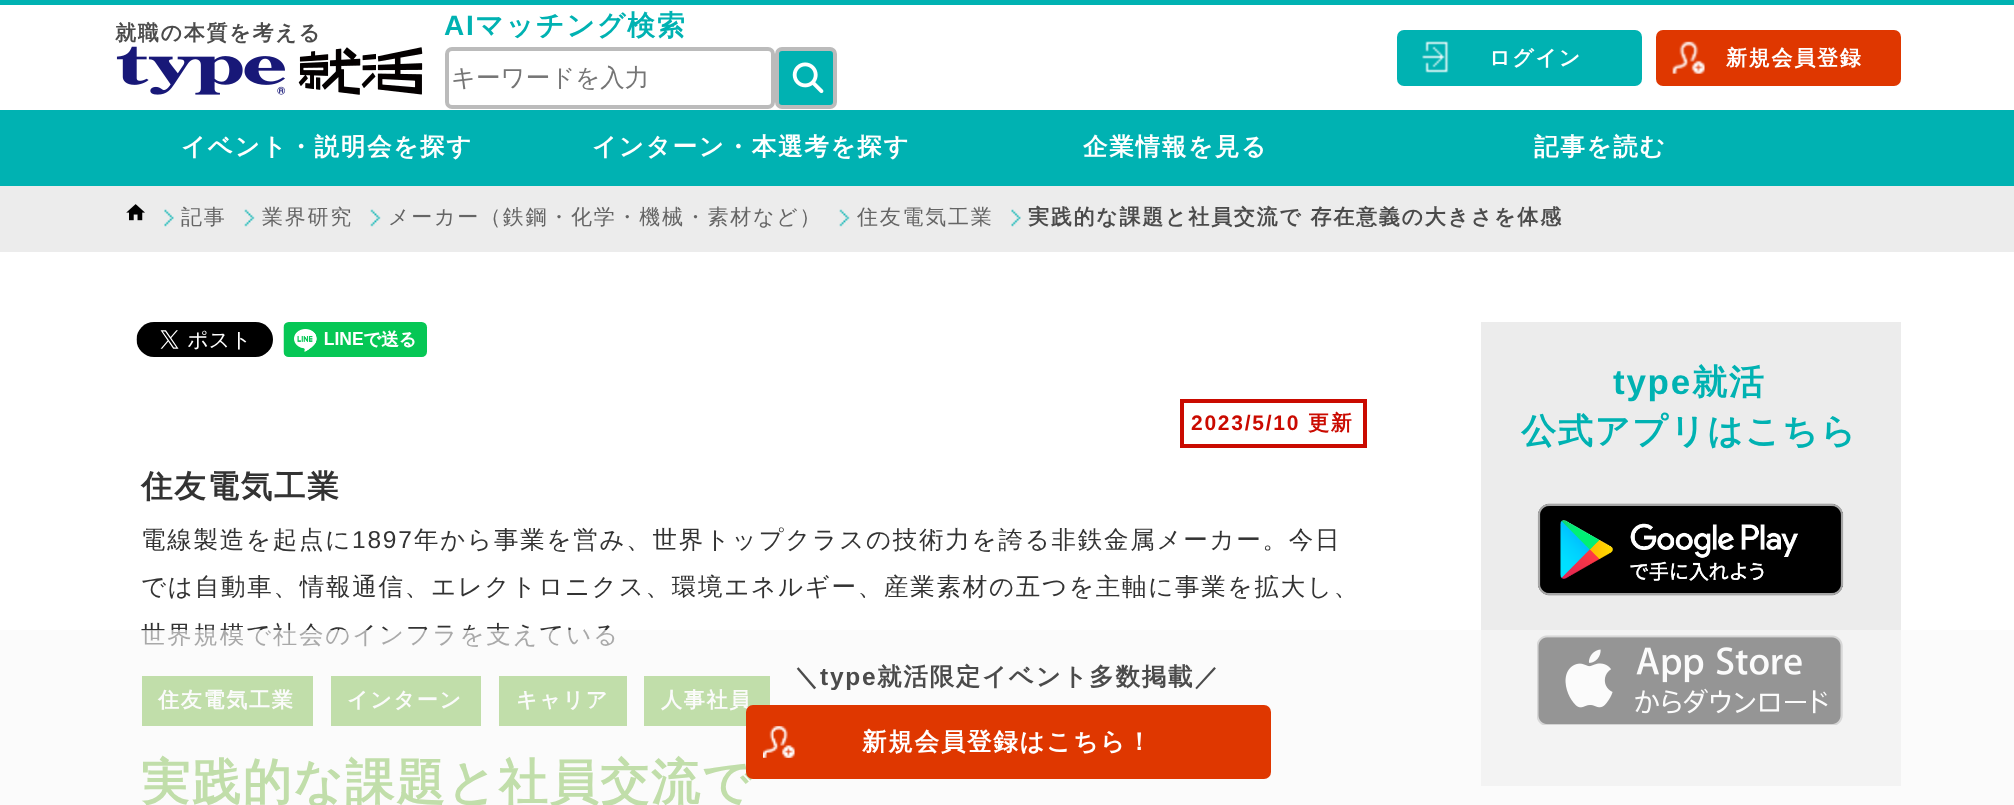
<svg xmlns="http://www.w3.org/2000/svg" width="2014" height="805">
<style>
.a{font:bold 21px WenQuanYi Zen Hei;letter-spacing:1.75px;fill:#4b4b4b}
.b{font:bold 28px Liberation Sans;letter-spacing:1.75px;fill:#00b2b2}
.c{font:bold 28px WenQuanYi Zen Hei;letter-spacing:1.75px;fill:#00b2b2}
.d{font:500 24.5px WenQuanYi Zen Hei;fill:#757575}
.e{font:bold 24.5px WenQuanYi Zen Hei;letter-spacing:1.75px;fill:#fff}
.f{font:bold 21px WenQuanYi Zen Hei;letter-spacing:1.75px;fill:#fff}
.g{font:500 21px WenQuanYi Zen Hei;letter-spacing:1.75px;fill:#656565}
.h{font:bold 21px Liberation Sans;letter-spacing:1.75px;fill:#ca0a00}
.i{font:bold 21px WenQuanYi Zen Hei;letter-spacing:1.75px;fill:#ca0a00}
.j{font:bold 31.5px WenQuanYi Zen Hei;letter-spacing:1.75px;fill:#333}
.k{font:500 24.5px WenQuanYi Zen Hei;letter-spacing:1.75px;fill:#333}
.l{font:24.5px Liberation Sans;letter-spacing:1.75px;fill:#333}
.m{font:bold 49px WenQuanYi Zen Hei;letter-spacing:1.75px;fill:#6fb736}
.n{font:bold 35px Liberation Sans;letter-spacing:1.75px;fill:#00b2b2}
.o{font:bold 35px WenQuanYi Zen Hei;letter-spacing:1.75px;fill:#00b2b2}
.p{font:bold 24.5px WenQuanYi Zen Hei;letter-spacing:1.75px;fill:#4b4b4b}
.q{font:bold 24.5px Liberation Sans;letter-spacing:1.75px;fill:#4b4b4b}
</style>
<rect width="100%" height="100%" fill="#fff"/>
<path fill="#00b2b2" d="M0 0h2014v5H0z"/>
<image href="1.png" x="116" y="46" width="307" height="49"/>
<rect fill="none" stroke="#bbb" stroke-width="4" x="447" y="49" width="326" height="58" rx="5"/>
<rect fill="#00b2b2" stroke="#bbb" stroke-width="4" x="777" y="49" width="58" height="58" rx="5"/>
<image href="2.png" x="792" y="62" width="32" height="32"/>
<path fill="#00b2b2" d="M1813 110h201v76H1813z"/>
<path fill="#00b2b2" d="M0 110h1813v76H0z"/>
<rect fill="#00b2b2" x="1397" y="30" width="245" height="56" rx="7"/>
<image href="3.png" x="1422" y="41" width="27" height="32"/>
<rect fill="#df3700" x="1656" y="30" width="245" height="56" rx="7"/>
<image href="4.png" x="1672" y="41" width="33" height="33"/>
<path fill="#ececec" d="M0 186h2014v66H0z"/>
<image href="5.png" x="164" y="209" width="10" height="18"/>
<image href="6.png" x="126" y="204" width="19" height="17"/>
<image href="7.png" x="244" y="209" width="11" height="18"/>
<image href="7.png" x="370" y="209" width="11" height="18"/>
<image href="7.png" x="839" y="209" width="11" height="18"/>
<image href="8.png" x="1011" y="209" width="10" height="18"/>
<image href="9.png" x="136" y="322" width="137" height="35"/>
<image href="10.png" x="283" y="322" width="145" height="35"/>
<path fill="none" stroke="#ca0a00" stroke-width="4" d="M1182 401h183v45H1182z"/>
<path fill="#6fb736" d="M142 676h171v50H142z"/>
<path fill="#6fb736" d="M331 676h150v50H331z"/>
<path fill="#6fb736" d="M499 676h128v50H499z"/>
<path fill="#6fb736" d="M644 676h126v50H644z"/>
<path fill="#ececec" d="M1481 322h420v464H1481z"/>
<image href="11.png" x="1537" y="503" width="307" height="93"/>
<image href="12.png" x="1537" y="635" width="306" height="90"/>
<text class="a" x="115" y="40">就職の本質を考える</text>
<text class="b" x="444" y="35">AI</text>
<text class="c" x="475" y="35">マッチング検索</text>
<text class="d" x="451" y="86">キーワードを入力</text>
<text class="e" x="181" y="155">イベント・説明会を探す</text>
<text class="e" x="592" y="155">インターン・本選考を探す</text>
<text class="e" x="1083" y="155">企業情報を見る</text>
<text class="e" x="1534" y="155">記事を読む</text>
<text class="f" x="1489" y="65">ログイン</text>
<text class="f" x="1726" y="65">新規会員登録</text>
<text class="g" x="181" y="224">記事</text>
<text class="g" x="262" y="224">業界研究</text>
<text class="g" x="388" y="224">メーカー（鉄鋼・化学・機械・素材など）</text>
<text class="g" x="857" y="224">住友電気工業</text>
<text class="a" x="1028" y="224">実践的な課題と社員交流で 存在意義の大きさを体感</text>
<text class="h" x="1191" y="430">2023/5/10</text>
<text class="i" x="1308" y="430">更新</text>
<text class="j" x="141" y="497">住友電気工業</text>
<text class="k" x="141" y="548">電線製造を起点に</text>
<text class="l" x="352" y="548">1897</text>
<text class="k" x="414" y="548">年から事業を営み、世界トップクラスの技術力を誇る非鉄金属メーカー。今日</text>
<text class="k" x="141" y="595">では自動車、情報通信、エレクトロニクス、環境エネルギー、産業素材の五つを主軸に事業を拡大し、</text>
<text class="k" x="141" y="643">世界規模で社会のインフラを支えている</text>
<text class="f" x="158" y="707">住友電気工業</text>
<text class="f" x="347" y="707">インターン</text>
<text class="f" x="516" y="707">キャリア</text>
<text class="f" x="661" y="707">人事社員</text>
<text class="m" x="141" y="799">実践的な課題と社員交流で</text>
<text class="n" x="1613" y="394">type</text>
<text class="o" x="1692" y="394">就活</text>
<text class="o" x="1521" y="443">公式アプリはこちら</text>
<path fill="#f8f8f899" d="M0 630h2014v175H0z"/>
<text class="p" x="794" y="685">＼</text>
<text class="q" x="820" y="685">type</text>
<text class="p" x="877" y="685">就活限定イベント多数掲載／</text>
<rect fill="#df3700" x="746" y="705" width="525" height="74" rx="7"/>
<image href="13.png" x="763" y="726" width="32" height="32"/>
<text class="e" x="862" y="750">新規会員登録はこちら！</text>
</svg>
